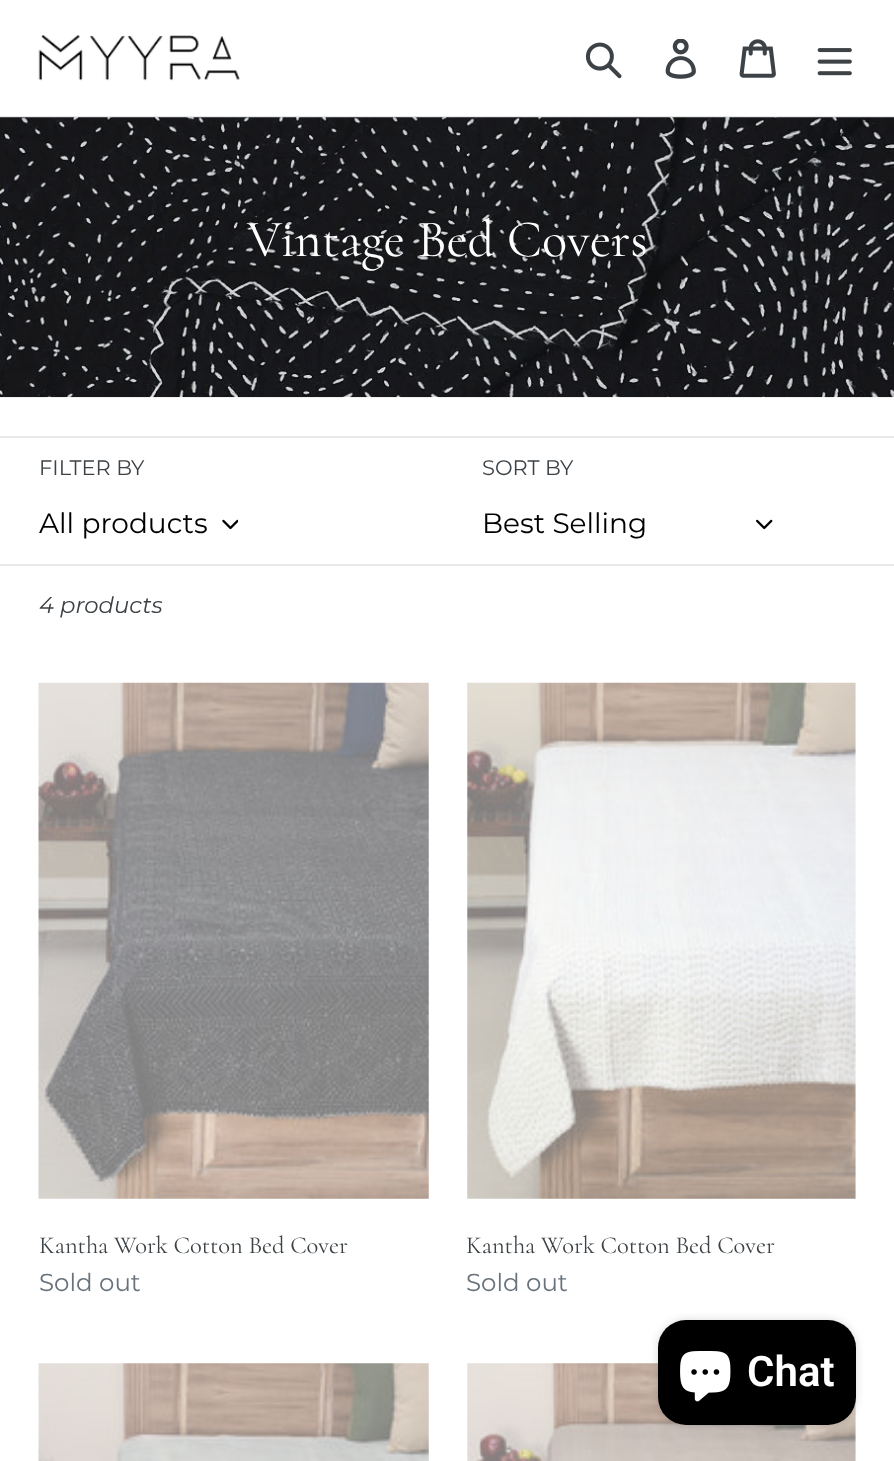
<svg xmlns="http://www.w3.org/2000/svg" width="894" height="1461">
<style>
.a{font:52.5px Cormorant;fill:#fff}
.b{font:21px Montserrat;fill:#3d4246}
.c{font:28px Montserrat;fill:#000}
.d{font:italic 22.75px Montserrat;fill:#3d4246}
.e{font:24.5px Cormorant;fill:#3d4246}
.f{font:24.5px Montserrat;fill:#69727b}
.g{font:600 42px Roboto;fill:#fff}
</style>
<rect width="100%" height="100%" fill="#fff"/>
<path fill="#e8e9eb" d="M0 116h894v2H0z"/>
<image href="1.png" x="38" y="35" width="202" height="46"/>
<image href="2.png" x="585" y="42" width="37" height="37"/>
<image href="3.png" x="665" y="39" width="31" height="40"/>
<image href="4.png" x="739" y="39" width="37" height="39"/>
<image href="5.png" x="817" y="48" width="35" height="28"/>
<image href="6.png" x="0" y="117" width="894" height="281"/>
<path fill="#e8e9eb" d="M0 436h894v2H0z"/>
<image href="7.png" x="222" y="519" width="16" height="11"/>
<image href="8.png" x="756" y="519" width="17" height="11"/>
<path fill="#e8e9eb" d="M0 564h894v2H0z"/>
<image href="9.png" x="38" y="682" width="391" height="517"/>
<image href="10.png" x="467" y="682" width="389" height="517"/>
<image href="11.png" x="38" y="1363" width="391" height="98"/>
<image href="12.png" x="467" y="1363" width="389" height="98"/>
<rect fill="#00000026" filter="blur(4.5px)" x="658" y="1320" width="198" height="105" rx="28"/>
<rect fill="#000" x="658" y="1320" width="198" height="105" rx="28"/>
<image href="13.png" x="680" y="1351" width="51" height="51"/>
<text class="a" x="247" y="256">Vintage Bed Covers</text>
<text class="b" x="39" y="475">FILTER BY</text>
<text class="c" x="39" y="533">All products</text>
<text class="b" x="482" y="475">SORT BY</text>
<text class="c" x="482" y="533">Best Selling</text>
<text class="d" x="39" y="613">4 products</text>
<text class="e" x="39" y="1253">Kantha Work Cotton Bed Cover</text>
<text class="f" x="39" y="1291">Sold out</text>
<text class="e" x="466" y="1253">Kantha Work Cotton Bed Cover</text>
<text class="f" x="466" y="1291">Sold out</text>
<text class="g" x="747" y="1386">Chat</text>
</svg>
